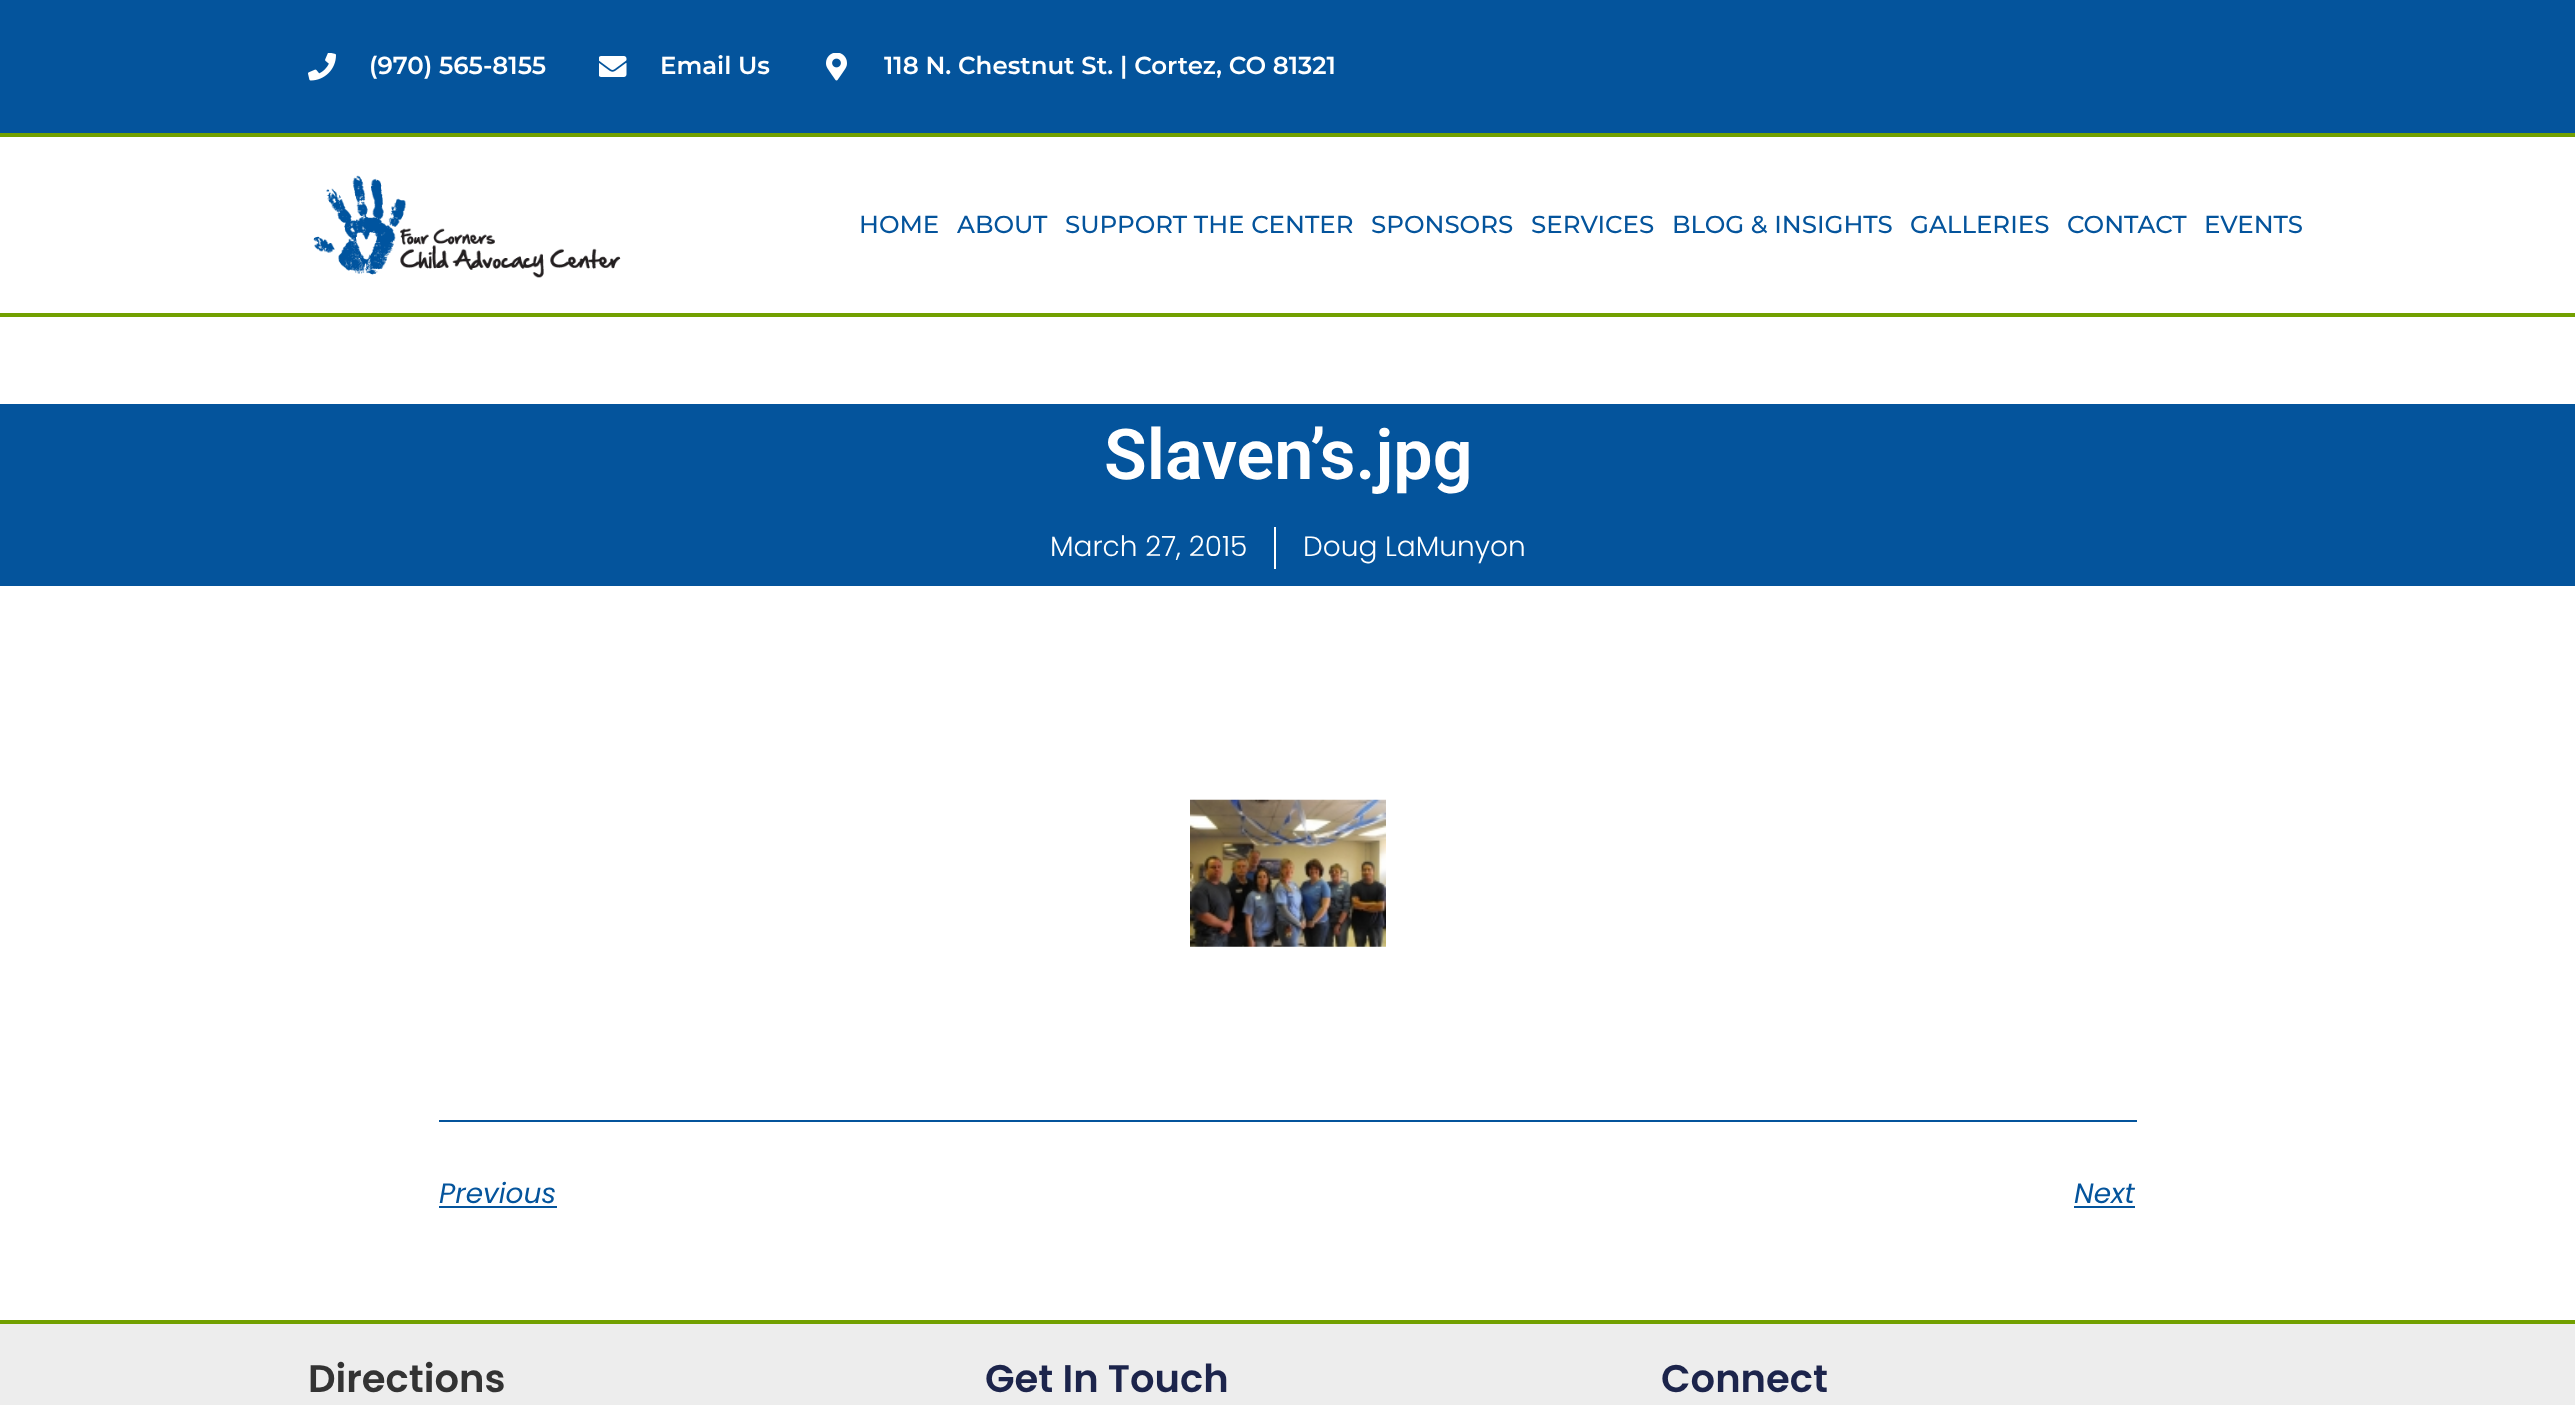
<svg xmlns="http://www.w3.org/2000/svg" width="2575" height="1405">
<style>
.a{font:600 24.5px Montserrat;fill:#fff}
.b{font:500 24.5px Montserrat;fill:#04549c}
.c{font:600 70px Roboto;fill:#fff}
.d{font:300 28px Poppins;fill:#fff}
.e{font:italic 28px Poppins;fill:#04549c}
.f{font:600 38.5px Poppins;fill:#333}
.g{font:600 38.5px Poppins;fill:#1c244b}
</style>
<rect width="100%" height="100%" fill="#fff"/>
<path fill="#04549c" d="M0 0h2575v133H0z"/>
<image href="1.png" x="308" y="53" width="28" height="28"/>
<image href="2.png" x="599" y="56" width="28" height="21"/>
<image href="3.png" x="826" y="53" width="21" height="28"/>
<path fill="#72a000" d="M0 133h2575v4H0z"/>
<path fill="#72a000" d="M0 313h2575v4H0z"/>
<image href="4.png" x="313" y="175" width="308" height="103"/>
<path fill="#04549c" d="M0 404h2575v182H0z"/>
<path fill="#fff" d="M1274 527h2v42H1274z"/>
<image href="5.png" x="1190" y="799" width="196" height="148"/>
<path fill="#04549c" d="M439 1120h1698v2H439z"/>
<path fill="#04549c" d="M439 1206h118v2H439z"/>
<path fill="#04549c" d="M2074 1206h61v2H2074z"/>
<path fill="#ededed" d="M0 1324h2575v81H0z"/>
<path fill="#72a000" d="M0 1320h2575v4H0z"/>
<text class="a" x="369" y="74">(970) 565-8155</text>
<text class="a" x="660" y="74">Email Us</text>
<text class="a" x="884" y="74">118 N. Chestnut St. | Cortez, CO 81321</text>
<text class="b" x="859" y="233">HOME</text>
<text class="b" x="957" y="233">ABOUT</text>
<text class="b" x="1065" y="233">SUPPORT THE CENTER</text>
<text class="b" x="1371" y="233">SPONSORS</text>
<text class="b" x="1531" y="233">SERVICES</text>
<text class="b" x="1672" y="233">BLOG &amp; INSIGHTS</text>
<text class="b" x="1910" y="233">GALLERIES</text>
<text class="b" x="2067" y="233">CONTACT</text>
<text class="b" x="2204" y="233">EVENTS</text>
<text class="c" x="1104" y="479">Slaven’s.jpg</text>
<text class="d" x="1050" y="556">March 27, 2015</text>
<text class="d" x="1303" y="556">Doug LaMunyon</text>
<text class="e" x="439" y="1203">Previous</text>
<text class="e" x="2074" y="1203">Next</text>
<text class="f" x="308" y="1392">Directions</text>
<text class="g" x="985" y="1392">Get In Touch</text>
<text class="g" x="1661" y="1392">Connect</text>
</svg>
